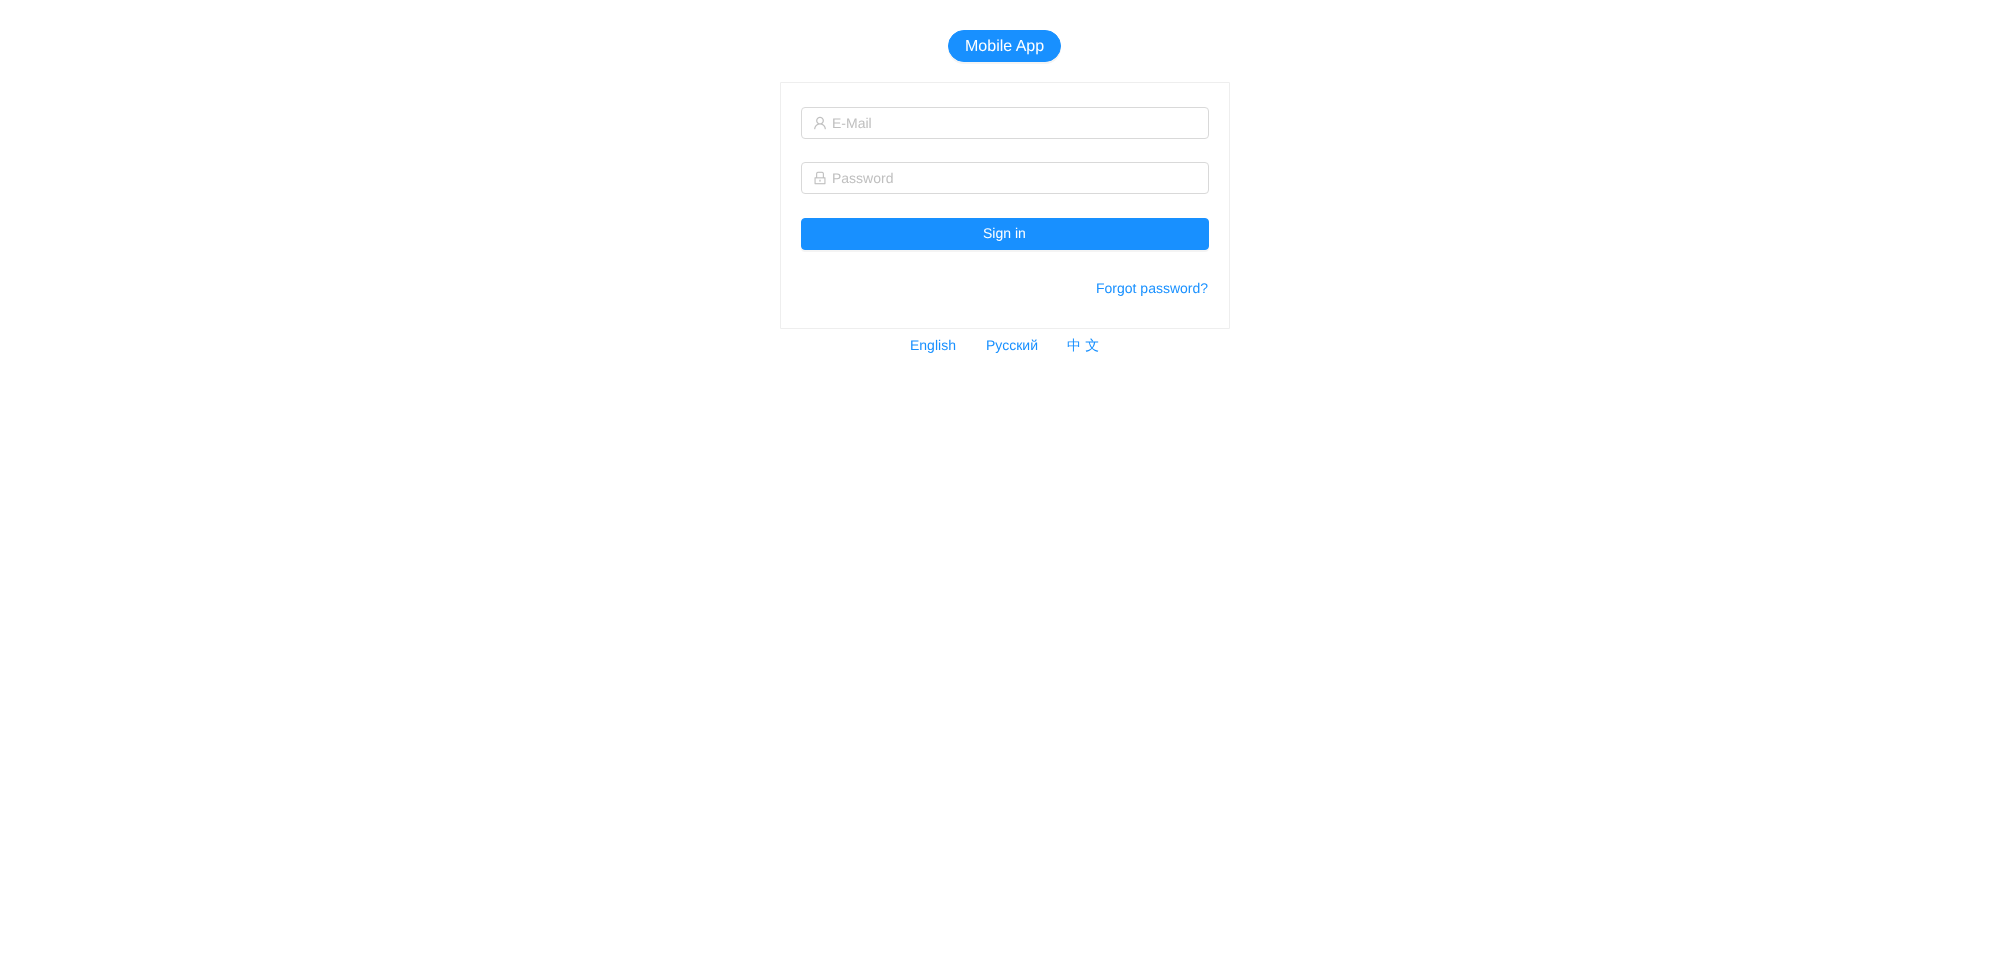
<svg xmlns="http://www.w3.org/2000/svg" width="2009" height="964">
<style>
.a{font:16px Liberation Sans;fill:#fff}
.b{font:14px Liberation Sans;fill:#bfbfbf}
.c{font:14px Liberation Sans;fill:#fff}
.d{font:14px Liberation Sans;fill:#1890ff}
.e{font:500 14px WenQuanYi Zen Hei;fill:#1890ff}
</style>
<rect width="100%" height="100%" fill="#fff"/>
<path fill="#f4f4f4" d="M948 47v1c0 9 7 16 16 16h81c9 0 16-7 16-16v-1c-1 8-7 15-16 15h-81c-9 0-15-7-16-15z"/>
<rect fill="#1890ff" stroke="#1890ff" x="948.5" y="30.5" width="112" height="31" rx="15.5"/>
<path fill="none" stroke="#eee" d="M780.5 82.5h449v246H780.5z"/>
<rect fill="none" stroke="#d9d9d9" x="801.5" y="107.5" width="407" height="31" rx="3.5"/>
<image href="1.png" x="814" y="116" width="12" height="14"/>
<rect fill="none" stroke="#d9d9d9" x="801.5" y="162.5" width="407" height="31" rx="3.5"/>
<image href="2.png" x="814" y="171" width="12" height="14"/>
<path fill="#f4f4f4" d="M801 246c0 3 0 6 4 6h400c4 0 4-3 4-6c0 2-2 4-4 4h-400c-2 0-4-2-4-4z"/>
<rect fill="#1890ff" stroke="#1890ff" x="801.5" y="218.5" width="407" height="31" rx="3.5"/>
<text class="a" x="965" y="51">Mobile App</text>
<text class="b" x="832" y="128">E-Mail</text>
<text class="b" x="832" y="183">Password</text>
<text class="c" x="983" y="238">Sign in</text>
<text class="d" x="1096" y="293">Forgot password?</text>
<text class="d" x="910" y="350">English</text>
<text class="d" x="986" y="350">Русский</text>
<text class="e" x="1067" y="350">中 文</text>
</svg>
